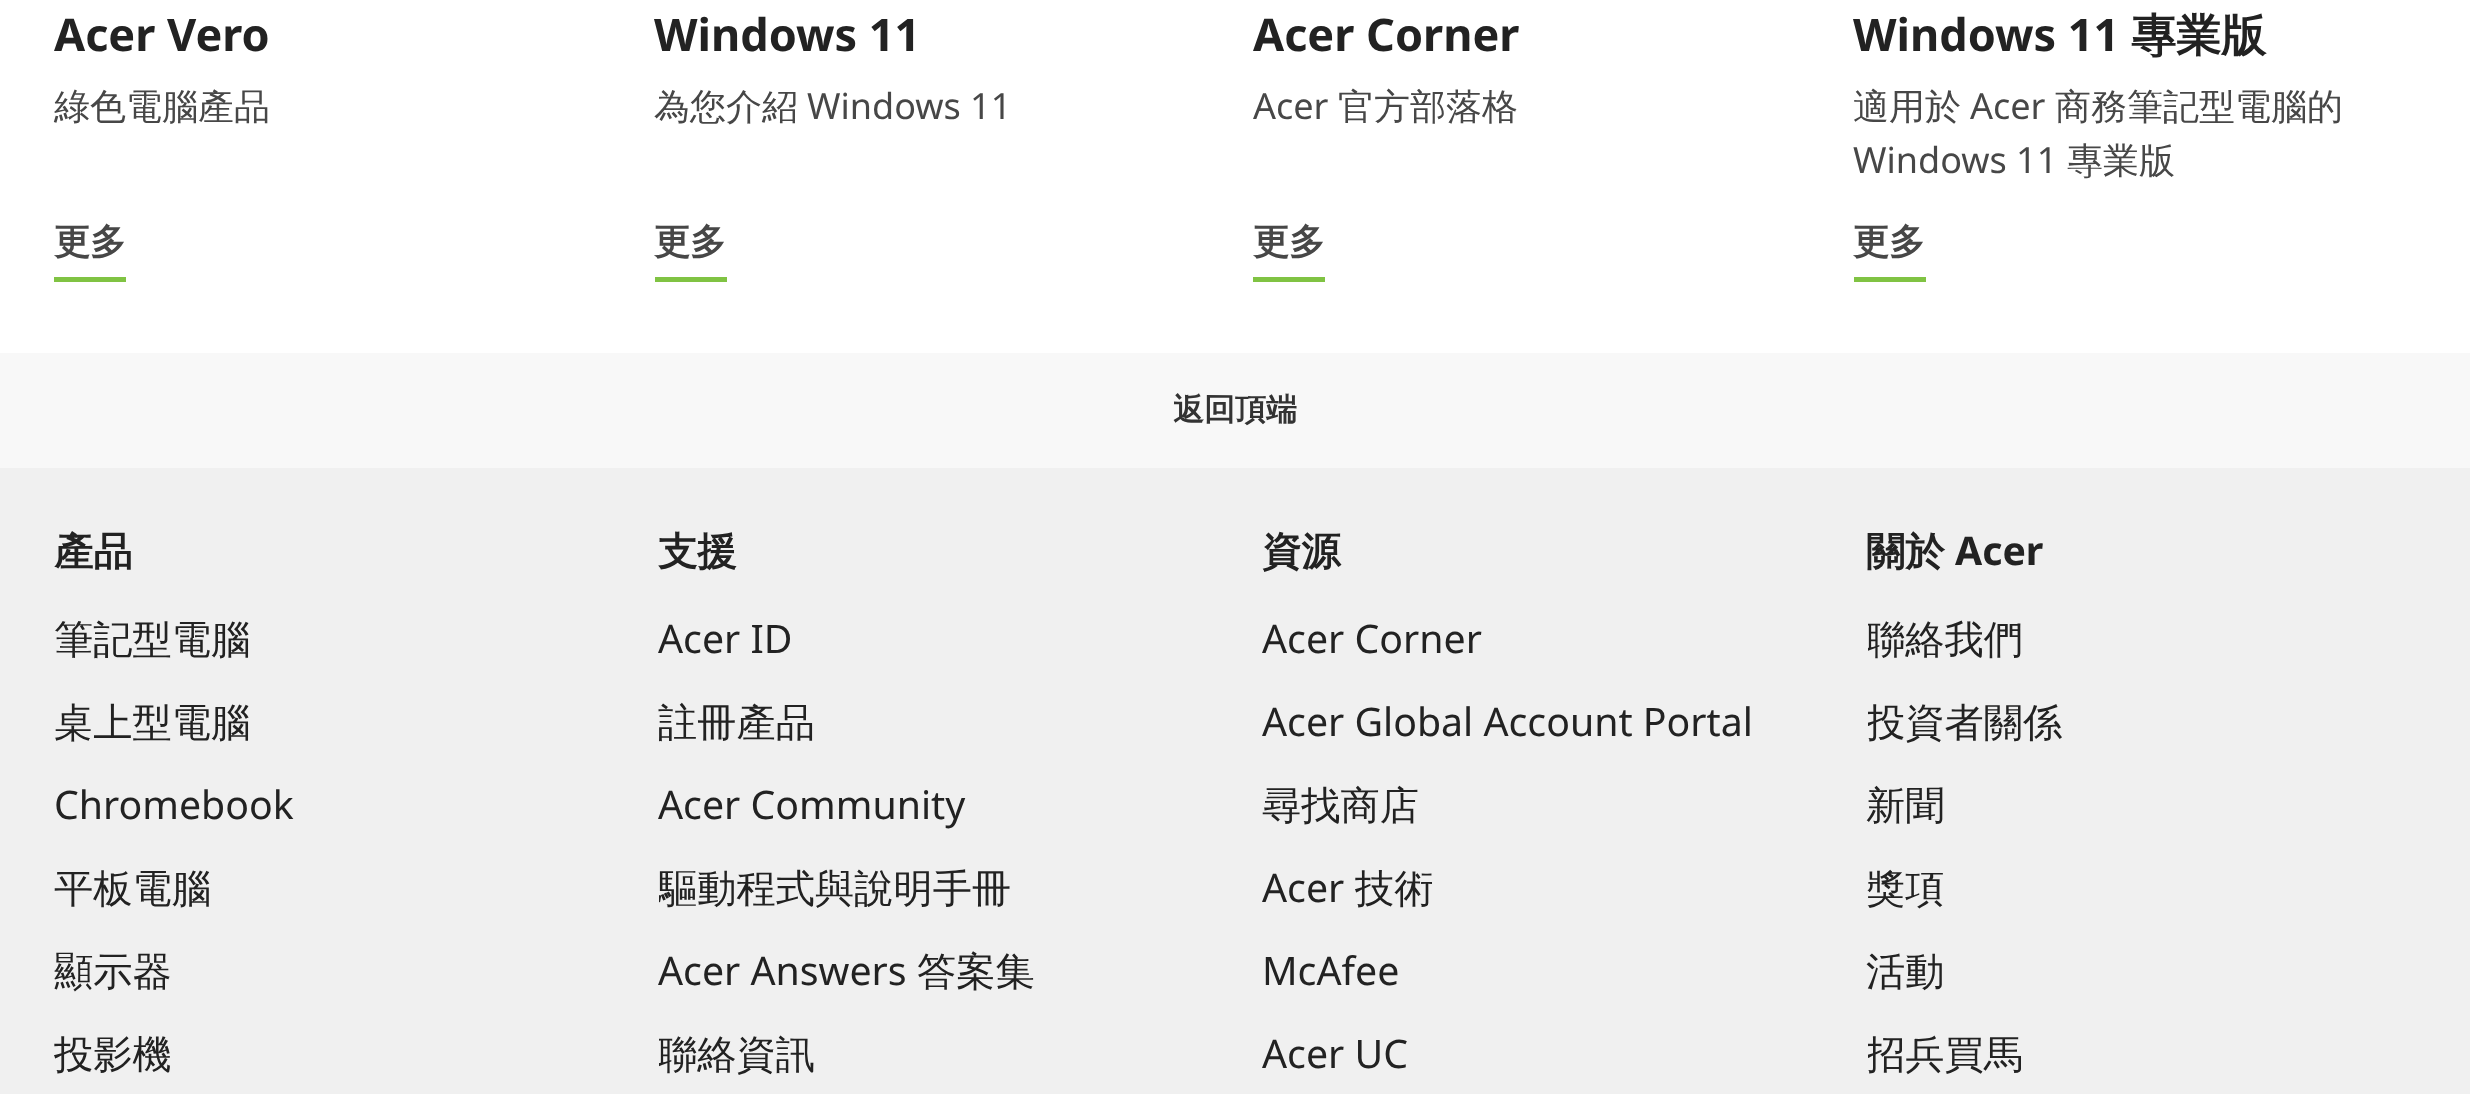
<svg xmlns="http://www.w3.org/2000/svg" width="2470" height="1094">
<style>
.a{font:bold 45px Noto Sans;fill:#222}
.b{font:500 36px WenQuanYi Zen Hei;fill:#474747}
.c{font:bold 36px WenQuanYi Zen Hei;fill:#474747}
.d{font:36px Noto Sans;fill:#474747}
.e{font:bold 45px WenQuanYi Zen Hei;fill:#222}
.f{font:bold 31px WenQuanYi Zen Hei;fill:#333}
.g{font:bold 39.25px WenQuanYi Zen Hei;fill:#222}
.h{font:500 39.25px WenQuanYi Zen Hei;fill:#222}
.i{font:39.25px Noto Sans;fill:#222}
.j{font:bold 39.25px Noto Sans;fill:#222}
</style>
<defs>
<clipPath id="clip1"><path d="M659 596h603v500H659z"/></clipPath>
<clipPath id="clip2"><path d="M1868 596h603v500H1868z"/></clipPath>
</defs>
<rect width="100%" height="100%" fill="#fff"/>
<path fill="#80c343" d="M54 277h72v5H54z"/>
<path fill="#80c343" d="M655 277h72v5H655z"/>
<path fill="#80c343" d="M1253 277h72v5H1253z"/>
<path fill="#80c343" d="M1854 277h72v5H1854z"/>
<path fill="#f0f0f0" d="M0 468h2470v626H0z"/>
<path fill="#f8f8f8" d="M0 353h2470v115H0z"/>
<text class="a" x="54" y="51">Acer Vero</text>
<text class="b" x="54" y="119">綠色電腦產品</text>
<text class="c" x="54" y="254">更多</text>
<text class="a" x="654" y="51">Windows 11</text>
<text class="b" x="654" y="119">為您介紹</text>
<text class="d" x="807" y="119">Windows 11</text>
<text class="c" x="654" y="254">更多</text>
<text class="a" x="1253" y="51">Acer Corner</text>
<text class="d" x="1253" y="119">Acer</text>
<text class="b" x="1338" y="119">官方部落格</text>
<text class="c" x="1253" y="254">更多</text>
<text class="a" x="1853" y="51">Windows 11</text>
<text class="e" x="2131" y="51">專業版</text>
<text class="b" x="1853" y="119">適用於</text>
<text class="d" x="1970" y="119">Acer</text>
<text class="b" x="2055" y="119">商務筆記型電腦的</text>
<text class="d" x="1853" y="173">Windows 11</text>
<text class="b" x="2067" y="173">專業版</text>
<text class="c" x="1853" y="254">更多</text>
<text class="f" x="1173" y="420">返回頂端</text>
<text class="g" x="54" y="565">產品</text>
<text class="h" x="54" y="653">筆記型電腦</text>
<text class="h" x="54" y="736">桌上型電腦</text>
<text class="i" x="54" y="819">Chromebook</text>
<text class="h" x="54" y="902">平板電腦</text>
<text class="h" x="54" y="985">顯示器</text>
<text class="h" x="54" y="1068">投影機</text>
<text class="g" x="658" y="565">支援</text>
<text class="i" x="658" y="653">Acer ID</text>
<text class="h" x="658" y="736">註冊產品</text>
<text class="i" x="658" y="819">Acer Community</text>
<g clip-path="url(#clip1)">
<text class="h" x="658" y="902">驅動程式與說明手冊</text>
</g>
<text class="i" x="658" y="985">Acer Answers</text>
<text class="h" x="917" y="985">答案集</text>
<g clip-path="url(#clip1)">
<text class="h" x="658" y="1068">聯絡資訊</text>
</g>
<text class="g" x="1262" y="565">資源</text>
<text class="i" x="1262" y="653">Acer Corner</text>
<text class="i" x="1262" y="736">Acer Global Account Portal</text>
<text class="h" x="1262" y="819">尋找商店</text>
<text class="i" x="1262" y="902">Acer</text>
<text class="h" x="1355" y="902">技術</text>
<text class="i" x="1262" y="985">McAfee</text>
<text class="i" x="1262" y="1068">Acer UC</text>
<text class="g" x="1866" y="565">關於</text>
<text class="j" x="1955" y="565">Acer</text>
<g clip-path="url(#clip2)">
<text class="h" x="1866" y="653">聯絡我們</text>
<text class="h" x="1866" y="736">投資者關係</text>
</g>
<text class="h" x="1866" y="819">新聞</text>
<text class="h" x="1866" y="902">獎項</text>
<text class="h" x="1866" y="985">活動</text>
<g clip-path="url(#clip2)">
<text class="h" x="1866" y="1068">招兵買馬</text>
</g>
</svg>
